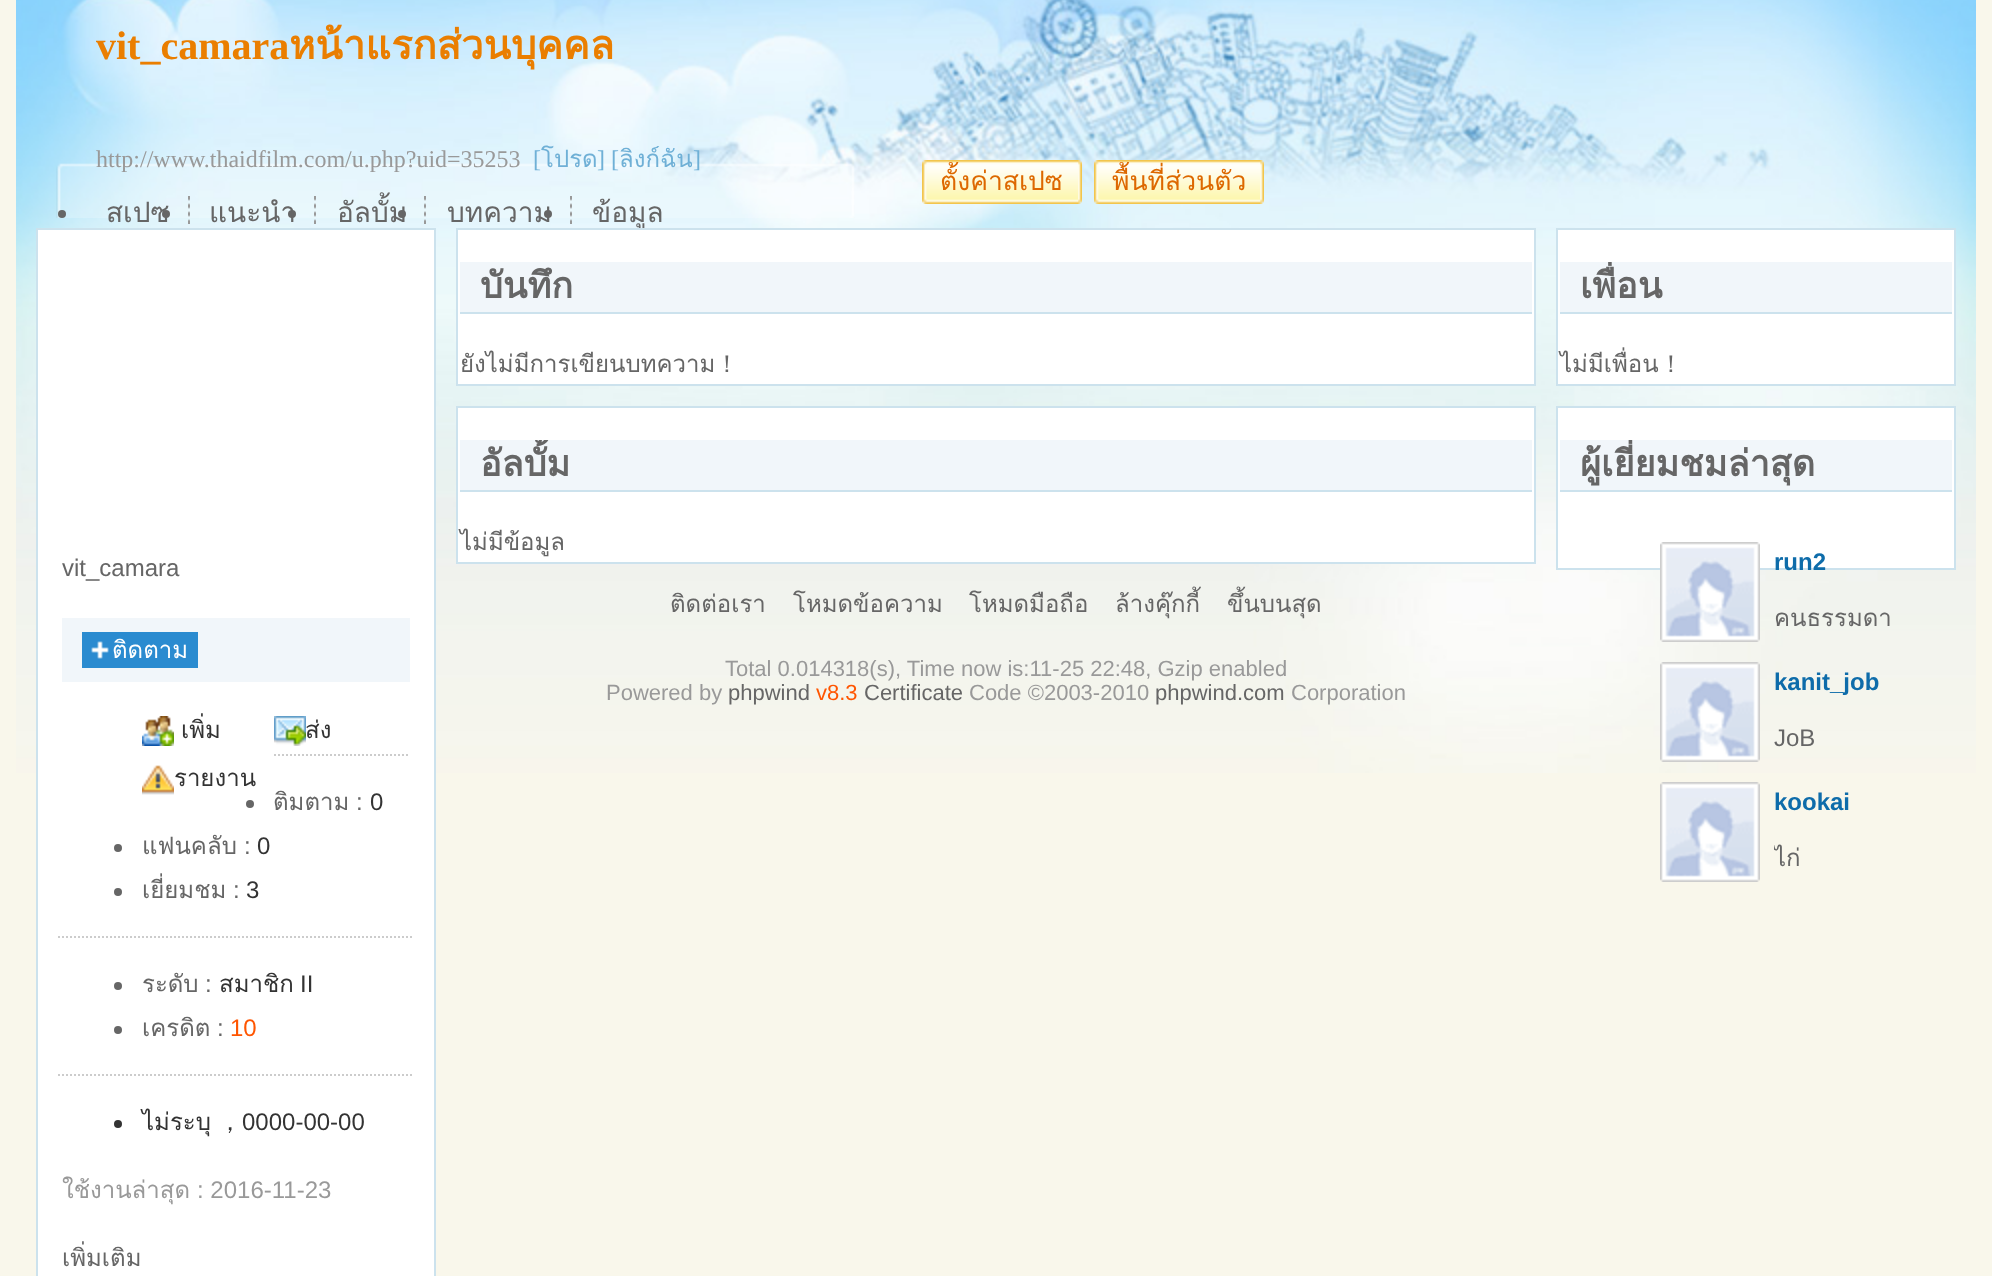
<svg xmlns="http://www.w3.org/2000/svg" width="1992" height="1276">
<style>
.a{font:bold 40px Liberation Serif;fill:#ea7e00}
.b{font:bold 40px Loma;fill:#ea7e00}
.c{font:24px Liberation Serif;fill:#999}
.d{font:24px Liberation Serif;fill:#6fb0d6}
.e{font:24px Loma;fill:#6fb0d6}
.f{font:26.5px Loma;fill:#dd6800}
.g{font:28px Loma;fill:#666}
.h{font:bold 36px Loma;fill:#666}
.i{font:24px Loma;fill:#666}
.j{font:500 24px WenQuanYi Zen Hei;fill:#666}
.k{font:bold 24px Liberation Sans;fill:#0e6caa}
.l{font:24px Liberation Sans;fill:#666}
.m{font:24px Loma;fill:#fff}
.n{font:24px Loma;fill:#333}
.o{font:24px Liberation Sans;fill:#333}
.p{font:24px Liberation Sans;fill:#f50}
.q{font:500 24px WenQuanYi Zen Hei;fill:#333}
.r{font:24px Loma;fill:#999}
.s{font:24px Liberation Sans;fill:#999}
.t{font:22px Liberation Sans;fill:#999}
.u{font:22px Liberation Sans;fill:#666}
.v{font:22px Liberation Sans;fill:#f50}
</style>
<defs>
<clipPath id="clip1"><path d="M456 228h1080v356H456z"/></clipPath>
<clipPath id="clip2"><path d="M460 440h1072v50H460z"/></clipPath>
<clipPath id="clip3"><path d="M1560 262h392v50H1560z"/></clipPath>
<clipPath id="clip4"><path d="M1560 440h392v50H1560z"/></clipPath>
<clipPath id="clip5"><path d="M1774 840h182v36H1774z"/></clipPath>
</defs>
<rect width="100%" height="100%" fill="#f9f7eb"/>
<image href="1.png" x="16" y="0" width="1960" height="773"/>
<image href="2.png" x="1078" y="160" width="4" height="44"/>
<image href="3.png" x="922" y="160" width="156" height="44"/>
<image href="4.png" x="1260" y="160" width="4" height="44"/>
<image href="5.png" x="1094" y="160" width="166" height="44"/>
<image href="6.png" x="56" y="163" width="799" height="55"/>
<circle fill="#666" cx="62" cy="214" r="4"/>
<image href="7.png" x="188" y="196" width="2" height="28"/>
<circle fill="#666" cx="166" cy="214" r="4"/>
<image href="8.png" x="314" y="196" width="2" height="28"/>
<circle fill="#666" cx="292" cy="214" r="4"/>
<image href="9.png" x="424" y="196" width="2" height="28"/>
<circle fill="#666" cx="402" cy="214" r="4"/>
<image href="10.png" x="570" y="196" width="2" height="28"/>
<circle fill="#666" cx="548" cy="214" r="4"/>
<path fill="#fff" stroke="#cce2ed" stroke-width="2" d="M457 407h1078v156H457z"/>
<path fill="#f1f6fa" d="M460 440h1072v50H460z"/>
<path fill="#cce2ed" d="M460 490h1072v2H460z"/>
<path fill="#fff" stroke="#cce2ed" stroke-width="2" d="M1557 229h398v156H1557z"/>
<path fill="#f1f6fa" d="M1560 262h392v50H1560z"/>
<path fill="#cce2ed" d="M1560 312h392v2H1560z"/>
<path fill="#fff" stroke="#cce2ed" stroke-width="2" d="M1557 407h398v162H1557z"/>
<path fill="#f1f6fa" d="M1560 440h392v50H1560z"/>
<path fill="#cce2ed" d="M1560 490h392v2H1560z"/>
<image href="11.png" x="1660" y="542" width="100" height="100"/>
<image href="12.png" x="1660" y="662" width="100" height="100"/>
<image href="13.png" x="1660" y="782" width="100" height="100"/>
<path fill="#fff" stroke="#cce2ed" stroke-width="2" d="M37 229h398v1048H37z"/>
<path fill="#f1f6fa" d="M62 618h348v64H62z"/>
<path fill="#2a8bd0" d="M82 632h116v36H82z"/>
<image href="14.png" x="91" y="641" width="18" height="18"/>
<image href="15.png" x="142" y="716" width="32" height="30"/>
<image href="16.png" x="274" y="716" width="32" height="30"/>
<image href="17.png" x="142" y="765" width="32" height="30"/>
<path fill="none" stroke="#ccc" stroke-width="2" stroke-dasharray="2 2" d="M274 755h136"/>
<circle fill="#666" cx="250" cy="804" r="4"/>
<circle fill="#666" cx="118" cy="848" r="4"/>
<circle fill="#666" cx="118" cy="892" r="4"/>
<path fill="none" stroke="#ccc" stroke-width="2" stroke-dasharray="2 2" d="M58 937h356"/>
<circle fill="#666" cx="118" cy="986" r="4"/>
<circle fill="#666" cx="118" cy="1030" r="4"/>
<path fill="none" stroke="#ccc" stroke-width="2" stroke-dasharray="2 2" d="M58 1075h356"/>
<circle fill="#333" cx="118" cy="1124" r="4"/>
<text class="a" x="96" y="59">vit_camara</text>
<text class="b" x="289" y="59">หน้าแรกส่วนบุคคล</text>
<text class="c" x="96" y="167">http://www.thaidfilm.com/u.php?uid=35253</text>
<text class="d" x="533" y="167">[</text>
<text class="e" x="541" y="167">โปรด</text>
<text class="d" x="597" y="167">] [</text>
<text class="e" x="619" y="167">ลิงก์ฉัน</text>
<text class="d" x="693" y="167">]</text>
<text class="f" x="940" y="190">ตั้งค่าสเปซ</text>
<text class="f" x="1112" y="190">พื้นที่ส่วนตัว</text>
<text class="g" x="106" y="222">สเปซ</text>
<text class="g" x="209" y="222">แนะนำ</text>
<text class="g" x="337" y="222">อัลบั้ม</text>
<text class="g" x="447" y="222">บทความ</text>
<text class="g" x="592" y="222">ข้อมูล</text>
<path fill="#fff" stroke="#cce2ed" stroke-width="2" d="M457 229h1078v156H457z"/>
<path fill="#f1f6fa" d="M460 262h1072v50H460z"/>
<path fill="#cce2ed" d="M460 312h1072v2H460z"/>
<text class="h" x="480" y="298">บันทึก</text>
<g clip-path="url(#clip1)">
<text class="i" x="460" y="372">ยังไม่มีการเขียนบทความ</text>
</g>
<text class="j" x="715" y="372">！</text>
<g clip-path="url(#clip2)">
<text class="h" x="480" y="476">อัลบั้ม</text>
</g>
<text class="i" x="460" y="550">ไม่มีข้อมูล</text>
<g clip-path="url(#clip3)">
<text class="h" x="1580" y="298">เพื่อน</text>
</g>
<text class="i" x="1560" y="372">ไม่มีเพื่อน</text>
<text class="j" x="1659" y="372">！</text>
<g clip-path="url(#clip4)">
<text class="h" x="1580" y="476">ผู้เยี่ยมชมล่าสุด</text>
</g>
<text class="k" x="1774" y="570">run2</text>
<text class="i" x="1774" y="626">คนธรรมดา</text>
<text class="k" x="1774" y="690">kanit_job</text>
<text class="l" x="1774" y="746">JoB</text>
<text class="k" x="1774" y="810">kookai</text>
<g clip-path="url(#clip5)">
<text class="i" x="1774" y="866">ไก่</text>
</g>
<text class="l" x="62" y="576">vit_camara</text>
<text class="m" x="112" y="658">ติดตาม</text>
<text class="n" x="181" y="738">เพิ่ม</text>
<text class="n" x="305" y="738">ส่ง</text>
<text class="n" x="174" y="786">รายงาน</text>
<text class="i" x="273" y="810">ติมตาม</text>
<text class="l" x="356" y="810">:</text>
<text class="o" x="370" y="810">0</text>
<text class="i" x="142" y="854">แฟนคลับ</text>
<text class="l" x="244" y="854">:</text>
<text class="o" x="257" y="854">0</text>
<text class="i" x="142" y="898">เยี่ยมชม</text>
<text class="l" x="233" y="898">:</text>
<text class="o" x="246" y="898">3</text>
<text class="i" x="142" y="992">ระดับ</text>
<text class="l" x="205" y="992">:</text>
<text class="n" x="219" y="992">สมาชิก</text>
<text class="o" x="300" y="992">II</text>
<text class="i" x="142" y="1036">เครดิต</text>
<text class="l" x="217" y="1036">:</text>
<text class="p" x="230" y="1036">10</text>
<text class="n" x="142" y="1130">ไม่ระบุ</text>
<text class="o" x="242" y="1130">0000-00-00</text>
<text class="q" x="218" y="1130">，</text>
<text class="r" x="62" y="1198">ใช้งานล่าสุด</text>
<text class="s" x="197" y="1198">: 2016-11-23</text>
<text class="i" x="62" y="1266">เพิ่มเติม</text>
<text class="i" x="670" y="612">ติดต่อเรา</text>
<text class="i" x="793" y="612">โหมดข้อความ</text>
<text class="i" x="969" y="612">โหมดมือถือ</text>
<text class="i" x="1115" y="612">ล้างคุ๊กกี้</text>
<text class="i" x="1227" y="612">ขึ้นบนสุด</text>
<text class="t" x="725" y="676">Total 0.014318(s), Time now is:11-25 22:48, Gzip enabled</text>
<text class="t" x="606" y="700">Powered by</text>
<text class="u" x="728" y="700">phpwind</text>
<text class="v" x="816" y="700">v8.3</text>
<text class="u" x="864" y="700">Certificate</text>
<text class="t" x="969" y="700">Code ©2003-2010</text>
<text class="u" x="1155" y="700">phpwind.com</text>
<text class="t" x="1291" y="700">Corporation</text>
</svg>
